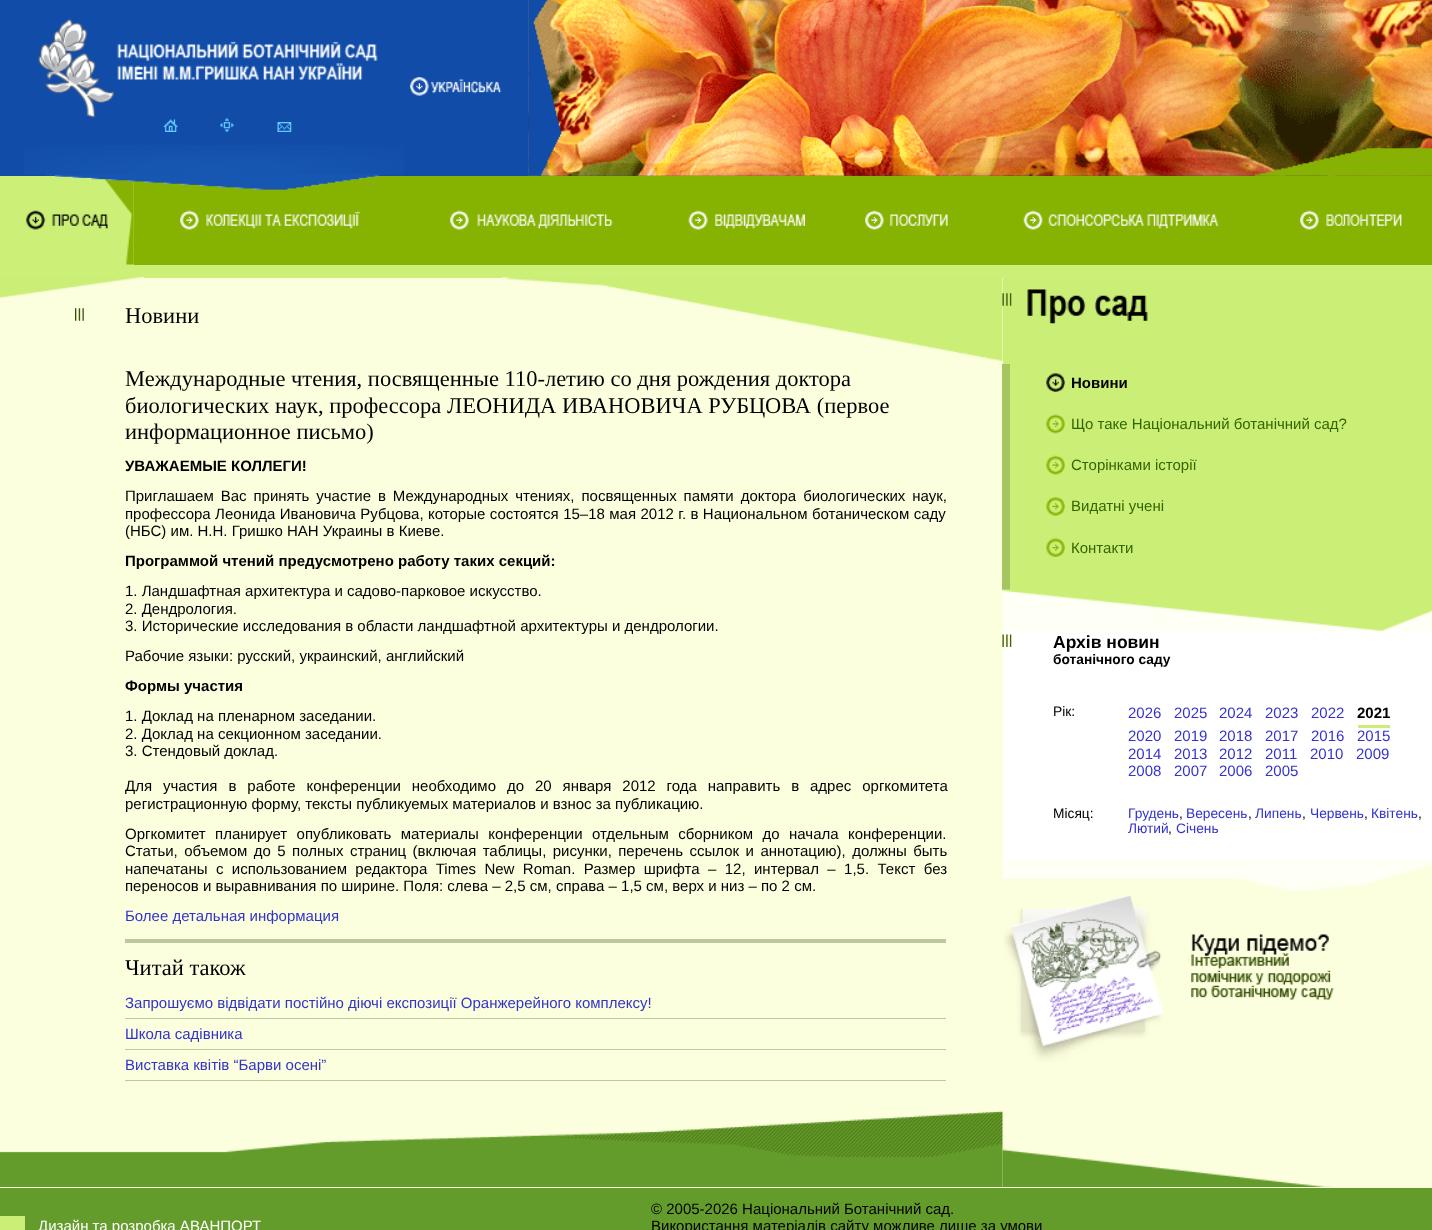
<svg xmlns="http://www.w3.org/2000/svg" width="1432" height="1230">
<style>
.a{font:22.5px Liberation Serif;fill:#000}
.b{font:bold 15px Liberation Sans;fill:#000}
.c{font:15px Liberation Sans;fill:#000}
.d{font:15px Liberation Sans;fill:#33c}
.e{font:15px Liberation Sans;fill:#360}
.f{font:bold 17.5px Liberation Sans;fill:#000}
.g{font:bold 13.75px Liberation Sans;fill:#000}
.h{font:13.75px Liberation Sans;fill:#000}
.i{font:13.75px Liberation Sans;fill:#33c}
.j{font:15px Liberation Sans;fill:#fff}
</style>
<rect width="100%" height="100%" fill="#649c2b"/>
<path fill="#114ca9" d="M0 0h1432v176H0z"/>
<image href="1.png" x="24" y="145" width="380" height="30"/>
<image href="2.png" x="38" y="19" width="340" height="99"/>
<image href="3.png" x="163" y="119" width="15" height="13"/>
<image href="4.png" x="220" y="118" width="14" height="14"/>
<image href="5.png" x="277" y="122" width="15" height="10"/>
<path fill="#86b202" d="M134 176h1298v89H134z"/>
<path fill="#ccef77" d="M0 176h134v89H0z"/>
<image href="11.png" x="102" y="179" width="32" height="86"/>
<image href="6.png" x="46" y="174" width="335" height="16"/>
<image href="7.png" x="410" y="77" width="92" height="19"/>
<image href="8.png" x="528" y="0" width="904" height="176"/>
<image href="9.png" x="1255" y="148" width="177" height="28"/>
<image href="10.png" x="528" y="0" width="34" height="176"/>
<image href="12.png" x="26" y="210" width="82" height="20"/>
<image href="13.png" x="180" y="210" width="180" height="20"/>
<image href="14.png" x="450" y="210" width="163" height="20"/>
<image href="15.png" x="688" y="210" width="117" height="20"/>
<image href="16.png" x="865" y="210" width="83" height="20"/>
<image href="17.png" x="1023" y="210" width="196" height="20"/>
<image href="18.png" x="1300" y="210" width="102" height="20"/>
<path fill="#ccef77" d="M0 265h1432v13H0z"/>
<path fill="#fcffde" d="M0 278h1432v910H0z"/>
<image href="19.png" x="0" y="277" width="144" height="22"/>
<image href="20.png" x="0" y="1110" width="1003" height="77"/>
<image href="21.png" x="502" y="277" width="501" height="84"/>
<image href="22.png" x="75" y="308" width="9" height="13"/>
<path fill="#bbc9a1" d="M125 939h821v4H125z"/>
<path fill="#bbc9a1" d="M125 1018h821v1H125z"/>
<path fill="#bbc9a1" d="M125 1049h821v1H125z"/>
<path fill="#bbc9a1" d="M125 1080h821v1H125z"/>
<image href="23.png" x="1002" y="1149" width="331" height="38"/>
<path fill="#cbef76" d="M1003 278h429v87H1003z"/>
<image href="24.png" x="1002" y="293" width="10" height="13"/>
<image href="25.png" x="1027" y="289" width="121" height="35"/>
<path fill="#cbef76" d="M1010 365h422v225H1010z"/>
<path fill="#a6c55e" d="M1002 364h8v226H1002z"/>
<image href="26.png" x="1046" y="373" width="19" height="19"/>
<image href="27.png" x="1046" y="414" width="19" height="20"/>
<image href="28.png" x="1046" y="455" width="19" height="20"/>
<image href="29.png" x="1046" y="497" width="19" height="19"/>
<image href="30.png" x="1046" y="538" width="19" height="19"/>
<image href="31.png" x="1002" y="589" width="430" height="42"/>
<path fill="#fff" d="M1003 631h429v229H1003z"/>
<image href="32.png" x="1002" y="634" width="10" height="13"/>
<path fill="#cbef76" d="M1358 725h32v3H1358z"/>
<image href="33.png" x="1002" y="859" width="430" height="33"/>
<image href="34.png" x="1004" y="894" width="160" height="168"/>
<image href="35.png" x="1191" y="934" width="143" height="66"/>
<path fill="#cbef76" d="M0 1216h25v14H0z"/>
<text class="a" x="125" y="323">Новини</text>
<text class="a" x="125" y="386">Международные чтения, посвященные 110-летию со дня рождения доктора</text>
<text class="a" x="125" y="413">биологических наук, профессора ЛЕОНИДА ИВАНОВИЧА РУБЦОВА (первое</text>
<text class="a" x="125" y="439">информационное письмо)</text>
<text class="b" x="125" y="471">УВАЖАЕМЫЕ КОЛЛЕГИ!</text>
<text class="c" x="125" y="501" word-spacing="2.75">Приглашаем Вас принять участие в Международных чтениях, посвященных памяти доктора биологических наук,</text>
<text class="c" x="125" y="519" word-spacing="0.25">профессора Леонида Ивановича Рубцова, которые состоятся 15–18 мая 2012 г. в Национальном ботаническом саду</text>
<text class="c" x="125" y="536">(НБС) им. Н.Н. Гришко НАН Украины в Киеве.</text>
<text class="b" x="125" y="566">Программой чтений предусмотрено работу таких секций:</text>
<text class="c" x="125" y="596">1. Ландшафтная архитектура и садово-парковое искусство.</text>
<text class="c" x="125" y="614">2. Дендрология.</text>
<text class="c" x="125" y="631">3. Исторические исследования в области ландшафтной архитектуры и дендрологии.</text>
<text class="c" x="125" y="661">Рабочие языки: русский, украинский, английский</text>
<text class="b" x="125" y="691">Формы участия</text>
<text class="c" x="125" y="721">1. Доклад на пленарном заседании.</text>
<text class="c" x="125" y="739">2. Доклад на секционном заседании.</text>
<text class="c" x="125" y="756">3. Стендовый доклад.</text>
<text class="c" x="125" y="791" word-spacing="6.75">Для участия в работе конференции необходимо до 20 января 2012 года направить в адрес оргкомитета</text>
<text class="c" x="125" y="809">регистрационную форму, тексты публикуемых материалов и взнос за публикацию.</text>
<text class="c" x="125" y="839" word-spacing="5.25">Оргкомитет планирует опубликовать материалы конференции отдельным сборником до начала конференции.</text>
<text class="c" x="125" y="856" word-spacing="2.25">Статьи, объемом до 5 полных страниц (включая таблицы, рисунки, перечень ссылок и аннотацию), должны быть</text>
<text class="c" x="125" y="874" word-spacing="4.25">напечатаны с использованием редактора Times New Roman. Размер шрифта – 12, интервал – 1,5. Текст без</text>
<text class="c" x="125" y="891">переносов и выравнивания по ширине. Поля: слева – 2,5 см, справа – 1,5 см, верх и низ – по 2 см.</text>
<text class="d" x="125" y="921">Более детальная информация</text>
<text class="a" x="125" y="975">Читай також</text>
<text class="d" x="125" y="1008">Запрошуємо відвідати постійно діючі експозиції Оранжерейного комплексу!</text>
<text class="d" x="125" y="1039">Школа садівника</text>
<text class="d" x="125" y="1070">Виставка квітів “Барви осені”</text>
<text class="b" x="1071" y="388">Новини</text>
<text class="e" x="1071" y="429">Що таке Національний ботанічний сад?</text>
<text class="e" x="1071" y="470">Сторінками історії</text>
<text class="e" x="1071" y="511">Видатні учені</text>
<text class="e" x="1071" y="553">Контакти</text>
<text class="f" x="1053" y="648">Архів новин</text>
<text class="g" x="1053" y="664">ботанічного саду</text>
<text class="h" x="1053" y="716">Рiк:</text>
<text class="d" x="1128" y="718">2026</text>
<text class="d" x="1174" y="718">2025</text>
<text class="d" x="1219" y="718">2024</text>
<text class="d" x="1265" y="718">2023</text>
<text class="d" x="1311" y="718">2022</text>
<text class="b" x="1357" y="718">2021</text>
<text class="d" x="1128" y="741">2020</text>
<text class="d" x="1174" y="741">2019</text>
<text class="d" x="1219" y="741">2018</text>
<text class="d" x="1265" y="741">2017</text>
<text class="d" x="1311" y="741">2016</text>
<text class="d" x="1357" y="741">2015</text>
<text class="d" x="1128" y="759">2014</text>
<text class="d" x="1174" y="759">2013</text>
<text class="d" x="1219" y="759">2012</text>
<text class="d" x="1265" y="759">2011</text>
<text class="d" x="1310" y="759">2010</text>
<text class="d" x="1356" y="759">2009</text>
<text class="d" x="1128" y="776">2008</text>
<text class="d" x="1174" y="776">2007</text>
<text class="d" x="1219" y="776">2006</text>
<text class="d" x="1265" y="776">2005</text>
<text class="h" x="1053" y="818">Мiсяц:</text>
<text class="i" x="1128" y="818">Грудень</text>
<text class="h" x="1179" y="818">,</text>
<text class="i" x="1186" y="818">Вересень</text>
<text class="h" x="1248" y="818">,</text>
<text class="i" x="1255" y="818">Липень</text>
<text class="h" x="1302" y="818">,</text>
<text class="i" x="1310" y="818">Червень</text>
<text class="h" x="1364" y="818">,</text>
<text class="i" x="1371" y="818">Квітень</text>
<text class="h" x="1418" y="818">,</text>
<text class="i" x="1128" y="833">Лютий</text>
<text class="h" x="1168" y="833">,</text>
<text class="i" x="1176" y="833">Січень</text>
<text class="j" x="38" y="1231">Дизайн та розробка АВАНПОРТ</text>
<text class="c" x="651" y="1214">© 2005-2026 Національний Ботанічний сад.</text>
<text class="c" x="651" y="1231">Використання матеріалів сайту можливе лише за умови</text>
</svg>
